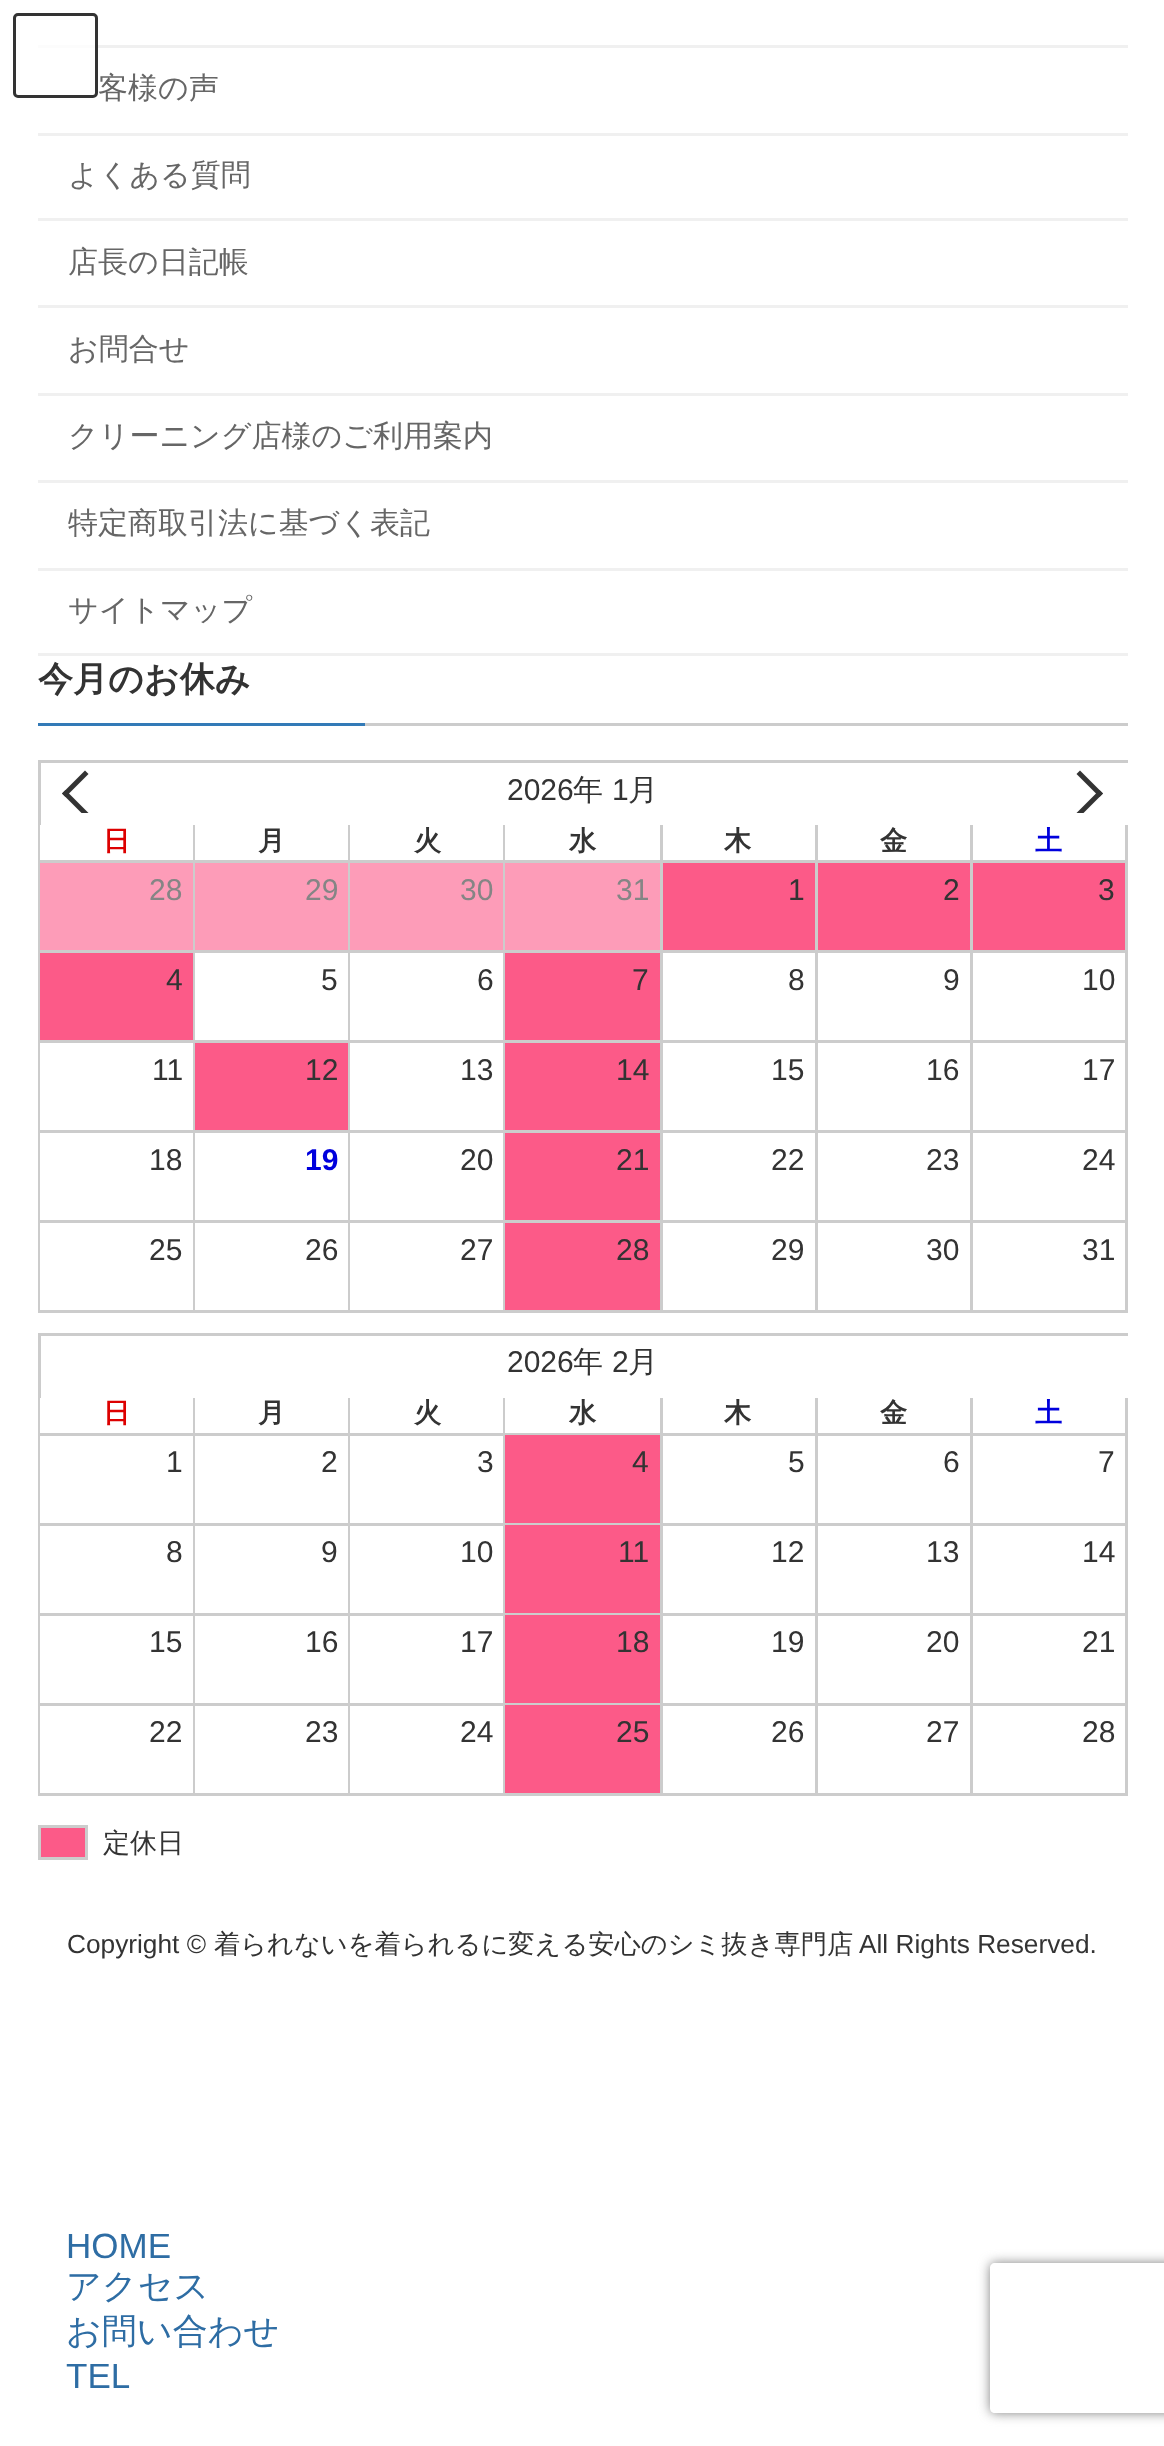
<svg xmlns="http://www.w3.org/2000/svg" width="1164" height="2446">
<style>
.a{font:500 30px WenQuanYi Zen Hei;fill:#666}
.b{font:bold 35px WenQuanYi Zen Hei;fill:#333}
.c{font:30px Liberation Sans;fill:#333}
.d{font:500 30px WenQuanYi Zen Hei;fill:#333}
.e{font:bold 27px WenQuanYi Zen Hei;fill:#d00}
.f{font:bold 27px WenQuanYi Zen Hei;fill:#333}
.g{font:bold 27px WenQuanYi Zen Hei;fill:#00d}
.h{font:30px Liberation Sans;fill:#858585}
.i{font:bold 30px Liberation Sans;fill:#00d}
.j{font:500 27px WenQuanYi Zen Hei;fill:#333}
.k{font:26.25px Liberation Sans;fill:#333}
.l{font:500 26.25px WenQuanYi Zen Hei;fill:#333}
.m{font:35px Liberation Sans;fill:#2e6da4}
.n{font:500 35px WenQuanYi Zen Hei;fill:#2e6da4}
</style>
<defs>
<clipPath id="clip1"><path d="M38 770h95v43H38z"/></clipPath>
<clipPath id="clip2"><path d="M1033 770h95v43H1033z"/></clipPath>
<clipPath id="clip3"><path d="M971 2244h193v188h-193zm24 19h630c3 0 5 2 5 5v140c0 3-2 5-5 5h-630c-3 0-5-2-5-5v-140c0-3 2-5 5-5z" clip-rule="evenodd"/></clipPath>
</defs>
<rect width="100%" height="100%" fill="#fff"/>
<path fill="#f0f0f0" d="M38 45h1090v3H38z"/>
<path fill="#f0f0f0" d="M38 133h1090v3H38z"/>
<path fill="#f0f0f0" d="M38 218h1090v3H38z"/>
<path fill="#f0f0f0" d="M38 305h1090v3H38z"/>
<path fill="#f0f0f0" d="M38 393h1090v3H38z"/>
<path fill="#f0f0f0" d="M38 480h1090v3H38z"/>
<path fill="#f0f0f0" d="M38 568h1090v3H38z"/>
<path fill="#f0f0f0" d="M38 653h1090v3H38z"/>
<path fill="#ccc" d="M365 723h763v3H365z"/>
<path fill="#337ab7" d="M38 723h327v3H38z"/>
<path fill="#ccc" d="M38 760h1090v3H38z"/>
<path fill="#ccc" d="M38 1310h1090v3H38z"/>
<path fill="#ccc" d="M38 760h3v553H38z"/>
<g clip-path="url(#clip1)">
<path fill="#333" d="M65.5 790l23 23l-3.5 3.5l-23-23z"/>
</g>
<path fill="#333" d="M85 770.5l3.5 3.5l-23 23l-3.5-3.5z"/>
<path fill="#333" d="M1080 770.5l23 23l-3.5 3.5l-23-23z"/>
<g clip-path="url(#clip2)">
<path fill="#333" d="M1099.5 790l3.5 3.5l-23 23l-3.5-3.5z"/>
</g>
<path fill="#fff" d="M40 825h1v35H40z"/>
<path fill="#ccc" d="M193 825h2v35H193z"/>
<path fill="#ccc" d="M348 825h2v35H348z"/>
<path fill="#ccc" d="M503 825h2v35H503z"/>
<path fill="#ccc" d="M660 825h3v35H660z"/>
<path fill="#ccc" d="M815 825h3v35H815z"/>
<path fill="#ccc" d="M970 825h3v35H970z"/>
<path fill="#ccc" d="M1125 825h3v35H1125z"/>
<path fill="#ccc" d="M40 860h1088v3H40z"/>
<path fill="#ccc" d="M193 860h2v90H193z"/>
<path fill="#fd9cb8" d="M40 863h153v87H40z"/>
<path fill="#ccc" d="M348 860h2v90H348z"/>
<path fill="#fd9cb8" d="M195 863h153v87H195z"/>
<path fill="#ccc" d="M503 860h2v90H503z"/>
<path fill="#fd9cb8" d="M350 863h153v87H350z"/>
<path fill="#ccc" d="M660 860h3v90H660z"/>
<path fill="#fd9cb8" d="M505 863h155v87H505z"/>
<path fill="#ccc" d="M815 860h3v90H815z"/>
<path fill="#fc5a88" d="M663 863h152v87H663z"/>
<path fill="#ccc" d="M970 860h3v90H970z"/>
<path fill="#fc5a88" d="M818 863h152v87H818z"/>
<path fill="#ccc" d="M1125 860h3v90H1125z"/>
<path fill="#fc5a88" d="M973 863h152v87H973z"/>
<path fill="#ccc" d="M40 950h1088v3H40z"/>
<path fill="#ccc" d="M193 950h2v90H193z"/>
<path fill="#fc5a88" d="M40 953h153v87H40z"/>
<path fill="#ccc" d="M348 950h2v90H348z"/>
<path fill="#ccc" d="M503 950h2v90H503z"/>
<path fill="#ccc" d="M660 950h3v90H660z"/>
<path fill="#fc5a88" d="M505 953h155v87H505z"/>
<path fill="#ccc" d="M815 950h3v90H815z"/>
<path fill="#ccc" d="M970 950h3v90H970z"/>
<path fill="#ccc" d="M1125 950h3v90H1125z"/>
<path fill="#fff" d="M40 1043h1v87H40z"/>
<path fill="#ccc" d="M40 1040h1088v3H40z"/>
<path fill="#ccc" d="M193 1040h2v90H193z"/>
<path fill="#ccc" d="M348 1040h2v90H348z"/>
<path fill="#fc5a88" d="M195 1043h153v87H195z"/>
<path fill="#ccc" d="M503 1040h2v90H503z"/>
<path fill="#ccc" d="M660 1040h3v90H660z"/>
<path fill="#fc5a88" d="M505 1043h155v87H505z"/>
<path fill="#ccc" d="M815 1040h3v90H815z"/>
<path fill="#ccc" d="M970 1040h3v90H970z"/>
<path fill="#ccc" d="M1125 1040h3v90H1125z"/>
<path fill="#fff" d="M40 1133h1v87H40z"/>
<path fill="#ccc" d="M40 1130h1088v3H40z"/>
<path fill="#ccc" d="M193 1130h2v90H193z"/>
<path fill="#ccc" d="M348 1130h2v90H348z"/>
<path fill="#ccc" d="M503 1130h2v90H503z"/>
<path fill="#ccc" d="M660 1130h3v90H660z"/>
<path fill="#fc5a88" d="M505 1133h155v87H505z"/>
<path fill="#ccc" d="M815 1130h3v90H815z"/>
<path fill="#ccc" d="M970 1130h3v90H970z"/>
<path fill="#ccc" d="M1125 1130h3v90H1125z"/>
<path fill="#fff" d="M40 1223h1v87H40z"/>
<path fill="#ccc" d="M40 1220h1088v3H40z"/>
<path fill="#ccc" d="M193 1220h2v90H193z"/>
<path fill="#ccc" d="M348 1220h2v90H348z"/>
<path fill="#ccc" d="M503 1220h2v90H503z"/>
<path fill="#ccc" d="M660 1220h3v90H660z"/>
<path fill="#fc5a88" d="M505 1223h155v87H505z"/>
<path fill="#ccc" d="M815 1220h3v90H815z"/>
<path fill="#ccc" d="M970 1220h3v90H970z"/>
<path fill="#ccc" d="M1125 1220h3v90H1125z"/>
<path fill="#ccc" d="M38 1333h1090v3H38z"/>
<path fill="#ccc" d="M38 1793h1090v3H38z"/>
<path fill="#ccc" d="M38 1333h3v462H38z"/>
<path fill="#fff" d="M40 1398h1v35H40z"/>
<path fill="#ccc" d="M193 1398h2v35H193z"/>
<path fill="#ccc" d="M348 1398h2v35H348z"/>
<path fill="#ccc" d="M503 1398h2v35H503z"/>
<path fill="#ccc" d="M660 1398h3v35H660z"/>
<path fill="#ccc" d="M815 1398h3v35H815z"/>
<path fill="#ccc" d="M970 1398h3v35H970z"/>
<path fill="#ccc" d="M1125 1398h3v35H1125z"/>
<path fill="#fff" d="M40 1436h1v87H40z"/>
<path fill="#ccc" d="M40 1433h465v3H40z"/>
<path fill="#ccc" d="M193 1433h2v90H193z"/>
<path fill="#ccc" d="M348 1433h2v90H348z"/>
<path fill="#ccc" d="M503 1433h2v90H503z"/>
<path fill="#ccc" d="M505 1433h158v2H505z"/>
<path fill="#ccc" d="M660 1433h3v90H660z"/>
<path fill="#fc5a88" d="M505 1435h155v88H505z"/>
<path fill="#ccc" d="M663 1433h465v3H663z"/>
<path fill="#ccc" d="M815 1433h3v90H815z"/>
<path fill="#ccc" d="M970 1433h3v90H970z"/>
<path fill="#ccc" d="M1125 1433h3v90H1125z"/>
<path fill="#fff" d="M40 1526h1v87H40z"/>
<path fill="#ccc" d="M40 1523h465v3H40z"/>
<path fill="#ccc" d="M193 1523h2v90H193z"/>
<path fill="#ccc" d="M348 1523h2v90H348z"/>
<path fill="#ccc" d="M503 1523h2v90H503z"/>
<path fill="#ccc" d="M505 1523h158v2H505z"/>
<path fill="#ccc" d="M660 1523h3v90H660z"/>
<path fill="#fc5a88" d="M505 1525h155v88H505z"/>
<path fill="#ccc" d="M663 1523h465v3H663z"/>
<path fill="#ccc" d="M815 1523h3v90H815z"/>
<path fill="#ccc" d="M970 1523h3v90H970z"/>
<path fill="#ccc" d="M1125 1523h3v90H1125z"/>
<path fill="#fff" d="M40 1616h1v87H40z"/>
<path fill="#ccc" d="M40 1613h465v3H40z"/>
<path fill="#ccc" d="M193 1613h2v90H193z"/>
<path fill="#ccc" d="M348 1613h2v90H348z"/>
<path fill="#ccc" d="M503 1613h2v90H503z"/>
<path fill="#ccc" d="M505 1613h158v2H505z"/>
<path fill="#ccc" d="M660 1613h3v90H660z"/>
<path fill="#fc5a88" d="M505 1615h155v88H505z"/>
<path fill="#ccc" d="M663 1613h465v3H663z"/>
<path fill="#ccc" d="M815 1613h3v90H815z"/>
<path fill="#ccc" d="M970 1613h3v90H970z"/>
<path fill="#ccc" d="M1125 1613h3v90H1125z"/>
<path fill="#fff" d="M40 1706h1v87H40z"/>
<path fill="#ccc" d="M40 1703h465v3H40z"/>
<path fill="#ccc" d="M193 1703h2v90H193z"/>
<path fill="#ccc" d="M348 1703h2v90H348z"/>
<path fill="#ccc" d="M503 1703h2v90H503z"/>
<path fill="#ccc" d="M505 1703h158v2H505z"/>
<path fill="#ccc" d="M660 1703h3v90H660z"/>
<path fill="#fc5a88" d="M505 1705h155v88H505z"/>
<path fill="#ccc" d="M663 1703h465v3H663z"/>
<path fill="#ccc" d="M815 1703h3v90H815z"/>
<path fill="#ccc" d="M970 1703h3v90H970z"/>
<path fill="#ccc" d="M1125 1703h3v90H1125z"/>
<path fill="#fc5a88" stroke="#ccc" stroke-width="3" d="M39.5 1826.5h47v32H39.5z"/>
<rect fill="#ffffffcc" stroke="#333" stroke-width="3" x="14.5" y="14.5" width="82" height="82" rx="3.5"/>
<g clip-path="url(#clip3)">
<rect fill="#808080" filter="blur(6px)" x="990" y="2263" width="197" height="150" rx="5"/>
</g>
<text class="a" x="98" y="98">客様の声</text>
<text class="a" x="68" y="185">よくある質問</text>
<text class="a" x="68" y="272">店長の日記帳</text>
<text class="a" x="68" y="359">お問合せ</text>
<text class="a" x="68" y="446">クリーニング店様のご利用案内</text>
<text class="a" x="68" y="533">特定商取引法に基づく表記</text>
<text class="a" x="68" y="620">サイトマップ</text>
<text class="b" x="38" y="691">今月のお休み</text>
<text class="c" x="507" y="800">2026</text>
<text class="d" x="573" y="800">年</text>
<text class="c" x="612" y="800">1</text>
<text class="d" x="628" y="800">月</text>
<text class="e" x="103" y="850">日</text>
<text class="f" x="258" y="850">月</text>
<text class="f" x="414" y="850">火</text>
<text class="f" x="569" y="850">水</text>
<text class="f" x="724" y="850">木</text>
<text class="f" x="880" y="850">金</text>
<text class="g" x="1035" y="850">土</text>
<text class="h" x="149" y="900">28</text>
<text class="h" x="305" y="900">29</text>
<text class="h" x="460" y="900">30</text>
<text class="h" x="616" y="900">31</text>
<text class="c" x="788" y="900">1</text>
<text class="c" x="943" y="900">2</text>
<text class="c" x="1098" y="900">3</text>
<text class="c" x="166" y="990">4</text>
<text class="c" x="321" y="990">5</text>
<text class="c" x="477" y="990">6</text>
<text class="c" x="632" y="990">7</text>
<text class="c" x="788" y="990">8</text>
<text class="c" x="943" y="990">9</text>
<text class="c" x="1082" y="990">10</text>
<text class="c" x="152" y="1080">11</text>
<text class="c" x="305" y="1080">12</text>
<text class="c" x="460" y="1080">13</text>
<text class="c" x="616" y="1080">14</text>
<text class="c" x="771" y="1080">15</text>
<text class="c" x="926" y="1080">16</text>
<text class="c" x="1082" y="1080">17</text>
<text class="c" x="149" y="1170">18</text>
<text class="i" x="305" y="1170">19</text>
<text class="c" x="460" y="1170">20</text>
<text class="c" x="616" y="1170">21</text>
<text class="c" x="771" y="1170">22</text>
<text class="c" x="926" y="1170">23</text>
<text class="c" x="1082" y="1170">24</text>
<text class="c" x="149" y="1260">25</text>
<text class="c" x="305" y="1260">26</text>
<text class="c" x="460" y="1260">27</text>
<text class="c" x="616" y="1260">28</text>
<text class="c" x="771" y="1260">29</text>
<text class="c" x="926" y="1260">30</text>
<text class="c" x="1082" y="1260">31</text>
<text class="c" x="507" y="1372">2026</text>
<text class="d" x="573" y="1372">年</text>
<text class="c" x="612" y="1372">2</text>
<text class="d" x="628" y="1372">月</text>
<text class="e" x="103" y="1422">日</text>
<text class="f" x="258" y="1422">月</text>
<text class="f" x="414" y="1422">火</text>
<text class="f" x="569" y="1422">水</text>
<text class="f" x="724" y="1422">木</text>
<text class="f" x="880" y="1422">金</text>
<text class="g" x="1035" y="1422">土</text>
<text class="c" x="166" y="1472">1</text>
<text class="c" x="321" y="1472">2</text>
<text class="c" x="477" y="1472">3</text>
<text class="c" x="632" y="1472">4</text>
<text class="c" x="788" y="1472">5</text>
<text class="c" x="943" y="1472">6</text>
<text class="c" x="1098" y="1472">7</text>
<text class="c" x="166" y="1562">8</text>
<text class="c" x="321" y="1562">9</text>
<text class="c" x="460" y="1562">10</text>
<text class="c" x="618" y="1562">11</text>
<text class="c" x="771" y="1562">12</text>
<text class="c" x="926" y="1562">13</text>
<text class="c" x="1082" y="1562">14</text>
<text class="c" x="149" y="1652">15</text>
<text class="c" x="305" y="1652">16</text>
<text class="c" x="460" y="1652">17</text>
<text class="c" x="616" y="1652">18</text>
<text class="c" x="771" y="1652">19</text>
<text class="c" x="926" y="1652">20</text>
<text class="c" x="1082" y="1652">21</text>
<text class="c" x="149" y="1742">22</text>
<text class="c" x="305" y="1742">23</text>
<text class="c" x="460" y="1742">24</text>
<text class="c" x="616" y="1742">25</text>
<text class="c" x="771" y="1742">26</text>
<text class="c" x="926" y="1742">27</text>
<text class="c" x="1082" y="1742">28</text>
<text class="j" x="103" y="1852">定休日</text>
<text class="k" x="67" y="1953">Copyright ©</text>
<text class="l" x="214" y="1953">着られないを着られるに変える安心のシミ抜き専門店</text>
<text class="k" x="859" y="1953">All Rights Reserved.</text>
<text class="m" x="66" y="2258">HOME</text>
<text class="n" x="66" y="2298">アクセス</text>
<text class="n" x="66" y="2343">お問い合わせ</text>
<text class="m" x="66" y="2388">TEL</text>
</svg>
